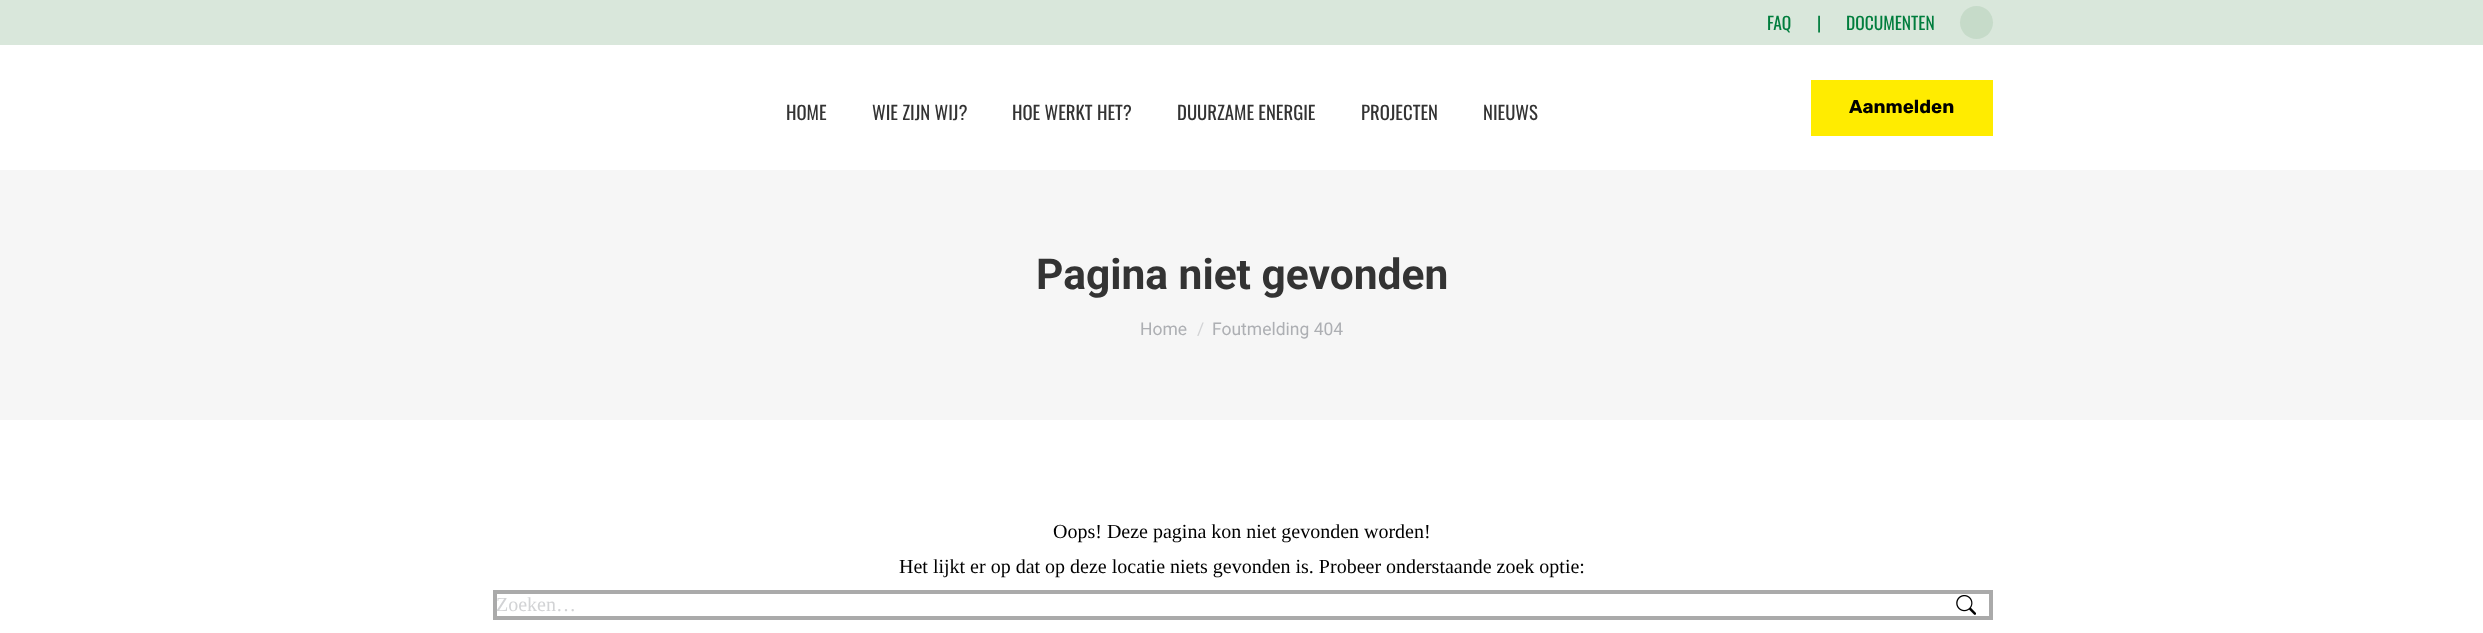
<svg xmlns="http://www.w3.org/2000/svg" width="2483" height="633">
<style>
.a{font:17.5px Oswald;fill:#007d3d}
.b{font:18.75px Oswald;fill:#333}
.c{font:bold 18.75px Rubik;fill:#000}
.d{font:bold 42.5px Roboto;fill:#333}
.e{font:17.5px Roboto;fill:#adafb3}
.f{font:17.5px Roboto;fill:#d2d3d5}
.g{font:20px Liberation Serif;fill:#000}
.h{font:20px Liberation Serif;fill:#d2d3d5}
</style>
<rect width="100%" height="100%" fill="#fff"/>
<path fill="#d9e7db" d="M0 0h2483v45H0z"/>
<circle fill="#c6dbc9" cx="1976.5" cy="22.5" r="16.5"/>
<path fill="#ffec00" d="M1811 80h182v56H1811z"/>
<path fill="#f6f6f6" d="M0 170h2483v250H0z"/>
<path fill="none" stroke="#aaa" stroke-width="4" d="M495 592h1496v26H495z"/>
<image href="1.png" x="1956" y="595" width="20" height="20"/>
<text class="a" x="1767" y="30">FAQ</text>
<text class="a" x="1817" y="30">|</text>
<text class="a" x="1846" y="30">DOCUMENTEN</text>
<text class="b" x="786" y="120">HOME</text>
<text class="b" x="872" y="120">WIE ZIJN WIJ?</text>
<text class="b" x="1012" y="120">HOE WERKT HET?</text>
<text class="b" x="1177" y="120">DUURZAME ENERGIE</text>
<text class="b" x="1361" y="120">PROJECTEN</text>
<text class="b" x="1483" y="120">NIEUWS</text>
<text class="c" x="1849" y="113">Aanmelden</text>
<text class="d" x="1036" y="289">Pagina niet gevonden</text>
<text class="e" x="1140" y="335">Home</text>
<text class="f" x="1197" y="335">/</text>
<text class="e" x="1212" y="335">Foutmelding 404</text>
<text class="g" x="1053" y="538">Oops! Deze pagina kon niet gevonden worden!</text>
<text class="g" x="899" y="573">Het lijkt er op dat op deze locatie niets gevonden is. Probeer onderstaande zoek optie:</text>
<text class="h" x="496" y="611">Zoeken…</text>
</svg>
